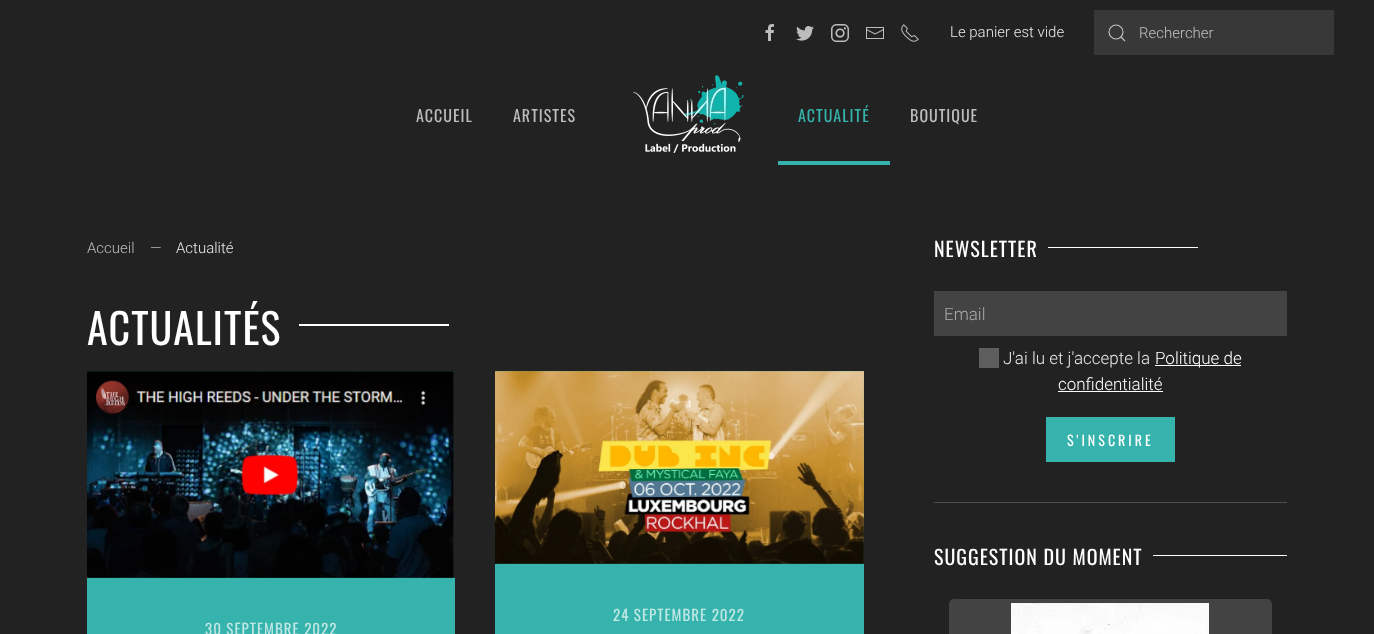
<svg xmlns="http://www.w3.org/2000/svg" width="1374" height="634">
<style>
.a{font:300 15px Roboto;fill:#e9e9e9}
.b{font:300 15px Roboto;fill:#c3c3c3}
.c{font:16px Oswald;letter-spacing:1px;fill:#bdbdbd}
.d{font:16px Oswald;letter-spacing:1px;fill:#35b3ac}
.e{font:300 15px Roboto;fill:#bdbdbd}
.f{font:42px Oswald;letter-spacing:1px;fill:#fff}
.g{font:15px Oswald;letter-spacing:1px;fill:#c2e8e6}
.h{font:20px Oswald;letter-spacing:1px;fill:#fff}
.i{font:300 17px Roboto;fill:#aaa}
.j{font:300 17px Roboto;fill:#e9e9e9}
.k{font:300 17px Roboto;fill:#fff}
.l{font:14px Oswald;letter-spacing:3px;fill:#fff}
</style>
<defs>
<clipPath id="clip1"><path d="M87 301h777v50H87z"/></clipPath>
</defs>
<rect width="100%" height="100%" fill="#222"/>
<image href="1.png" x="765" y="24" width="9" height="17"/>
<image href="2.png" x="796" y="26" width="18" height="15"/>
<image href="3.png" x="831" y="24" width="18" height="18"/>
<image href="4.png" x="866" y="27" width="18" height="12"/>
<image href="5.png" x="901" y="24" width="18" height="18"/>
<path fill="#383838" d="M1094 10h240v45H1094z"/>
<circle fill="none" stroke="#c3c3c3" stroke-width="1.1" cx="1116" cy="32" r="7"/>
<path fill="none" stroke="#ffffffb3" stroke-width="1.1" d="M1121 37l4 4z"/>
<image href="6.png" x="633" y="75" width="111" height="78"/>
<path fill="#35b3ac" d="M778 161h112v4H778z"/>
<path fill="#fff" d="M299 324h150v2H299z"/>
<path fill="#35b3ac" d="M495 371h369v263H495z"/>
<image href="7.png" x="495" y="371" width="369" height="193"/>
<path fill="#35b3ac" d="M87 371h368v263H87z"/>
<image href="8.png" x="87" y="371" width="368" height="207"/>
<path fill="#fff" d="M1048 247h150v1H1048z"/>
<path fill="#434343" d="M934 291h353v45H934z"/>
<path fill="#5e5e5e" d="M979 348h20v20H979z"/>
<path fill="#fff" d="M1155 365h86v1H1155z"/>
<path fill="#fff" d="M1058 391h105v1H1058z"/>
<path fill="#35b3ac" d="M1046 417h129v45H1046z"/>
<path fill="#4e4e4e" d="M934 502h353v1H934z"/>
<path fill="#fff" d="M1153 555h134v1H1153z"/>
<rect fill="#434343" x="949" y="599" width="323" height="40" rx="5"/>
<image href="9.png" x="1011" y="603" width="198" height="31"/>
<text class="a" x="950" y="37">Le panier est vide</text>
<text class="b" x="1139" y="38">Rechercher</text>
<text class="c" x="416" y="122">ACCUEIL</text>
<text class="c" x="513" y="122">ARTISTES</text>
<text class="d" x="798" y="122">ACTUALITÉ</text>
<text class="c" x="910" y="122">BOUTIQUE</text>
<text class="e" x="87" y="253">Accueil</text>
<text class="e" x="150" y="253">—</text>
<text class="a" x="176" y="253">Actualité</text>
<g clip-path="url(#clip1)">
<text class="f" x="87" y="345">ACTUALITÉS</text>
</g>
<text class="g" x="613" y="621">24 SEPTEMBRE 2022</text>
<text class="g" x="205" y="635">30 SEPTEMBRE 2022</text>
<text class="h" x="934" y="257">NEWSLETTER</text>
<text class="i" x="944" y="320">Email</text>
<text class="j" x="1003" y="364">J'ai lu et j'accepte la</text>
<text class="k" x="1155" y="364">Politique de</text>
<text class="k" x="1058" y="390">confidentialité</text>
<text class="l" x="1067" y="446">S'INSCRIRE</text>
<text class="h" x="934" y="565">SUGGESTION DU MOMENT</text>
</svg>
